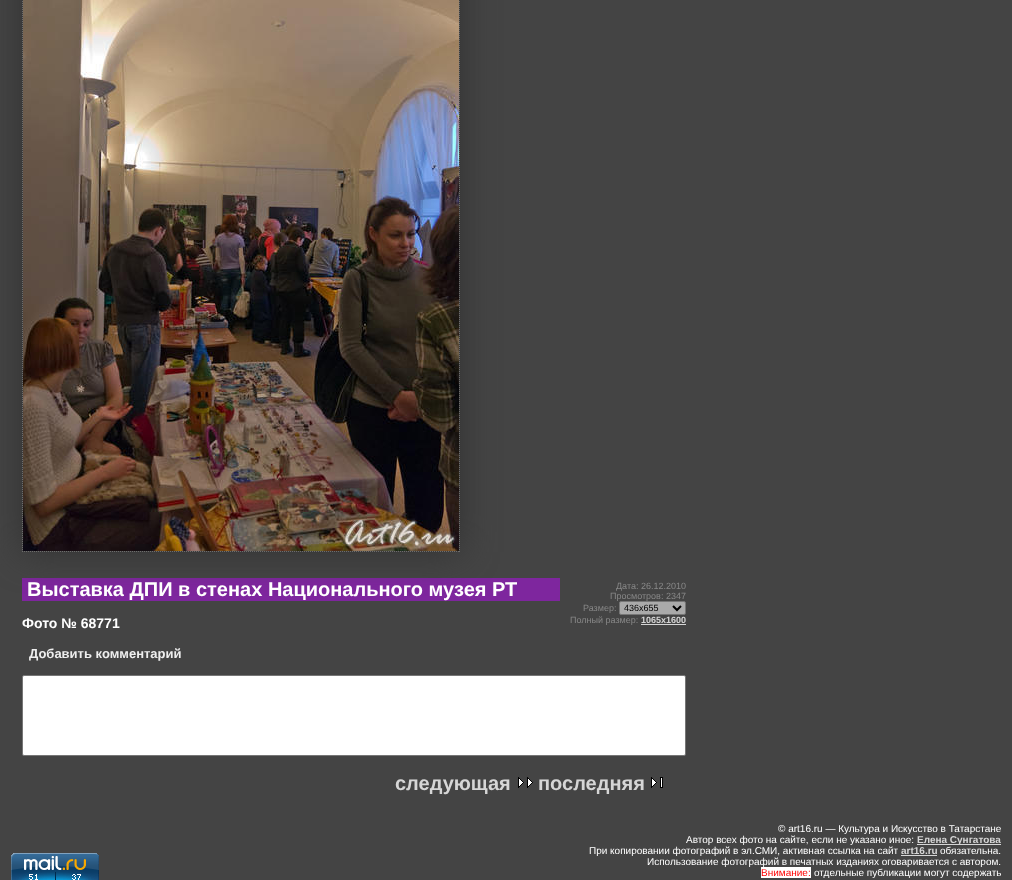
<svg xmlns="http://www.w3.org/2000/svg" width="1012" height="880">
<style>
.a{font:bold 20px Liberation Sans;fill:#fff}
.b{font:bold 14px Liberation Sans;fill:#fff}
.c{font:9px Liberation Sans;fill:#888}
.d{font:9px Liberation Sans;fill:#000}
.e{font:bold 9px Liberation Sans;fill:#d6d6d6}
.f{font:bold 13px Liberation Sans;fill:#eee}
.g{font:bold 20px Liberation Sans;fill:#d6d6d6}
.h{font:10px Liberation Sans;fill:#fff}
.i{font:bold 10px Liberation Sans;fill:#d6d6d6}
.j{font:10px Liberation Sans;fill:#f00}
</style>
<rect width="100%" height="100%" fill="#444"/>
<path fill="#7e269e" d="M22 578h538v23H22z"/>
<path fill="#323232" filter="blur(18px)" d="M22 -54h438v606H22z"/>
<path fill="none" stroke="#6d6c6c" stroke-dasharray="1 1" d="M22 551.5h438"/>
<path fill="none" stroke="#6d6c6c" stroke-dasharray="1 1" d="M22.5-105v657"/>
<image href="1.png" x="23" y="0" width="436" height="551"/>
<path fill="none" stroke="#6d6c6c" stroke-dasharray="1 1" d="M459.5-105v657"/>
<rect fill="#aaa" stroke="#767676" x="619.5" y="601.5" width="66" height="13" rx="1.5"/>
<path fill="none" stroke="#000" stroke-width="2" d="M673 606l4 4l4-4"/>
<path fill="#d6d6d6" d="M641 624h45v1H641z"/>
<rect fill="#fff" stroke="#767676" x="22.5" y="675.5" width="663" height="80" rx="1.5"/>
<image href="2.png" x="518" y="777" width="15" height="11"/>
<image href="3.png" x="651" y="777" width="12" height="11"/>
<image href="4.png" x="11" y="853" width="88" height="27"/>
<path fill="#d6d6d6" d="M917 844h84v1H917z"/>
<path fill="#d6d6d6" d="M901 855h36v1H901z"/>
<path fill="#fff" d="M761 867h50v11H761z"/>
<text class="a" x="27" y="596">Выставка ДПИ в стенах Национального музея РТ</text>
<text class="b" x="22" y="628">Фото № 68771</text>
<text class="c" x="616" y="589">Дата: 26.12.2010</text>
<text class="c" x="610" y="599">Просмотров: 2347</text>
<text class="c" x="583" y="611">Размер:</text>
<text class="d" x="624" y="611">436x655</text>
<text class="c" x="570" y="623">Полный размер:</text>
<text class="e" x="641" y="623">1065x1600</text>
<text class="f" x="29" y="658">Добавить комментарий</text>
<text class="g" x="395" y="790">следующая</text>
<text class="g" x="538" y="790">последняя</text>
<text class="h" x="778" y="832">© art16.ru — Культура и Искусство в Татарстане</text>
<text class="h" x="686" y="843">Автор всех фото на сайте, если не указано иное:</text>
<text class="i" x="917" y="843">Елена Сунгатова</text>
<text class="h" x="589" y="854">При копировании фотографий в эл.СМИ, активная ссылка на сайт</text>
<text class="i" x="901" y="854">art16.ru</text>
<text class="h" x="940" y="854">обязательна.</text>
<text class="h" x="647" y="865">Использование фотографий в печатных изданиях оговаривается с автором.</text>
<text class="j" x="761" y="876">Внимание:</text>
<text class="h" x="814" y="876">отдельные публикации могут содержать</text>
</svg>
